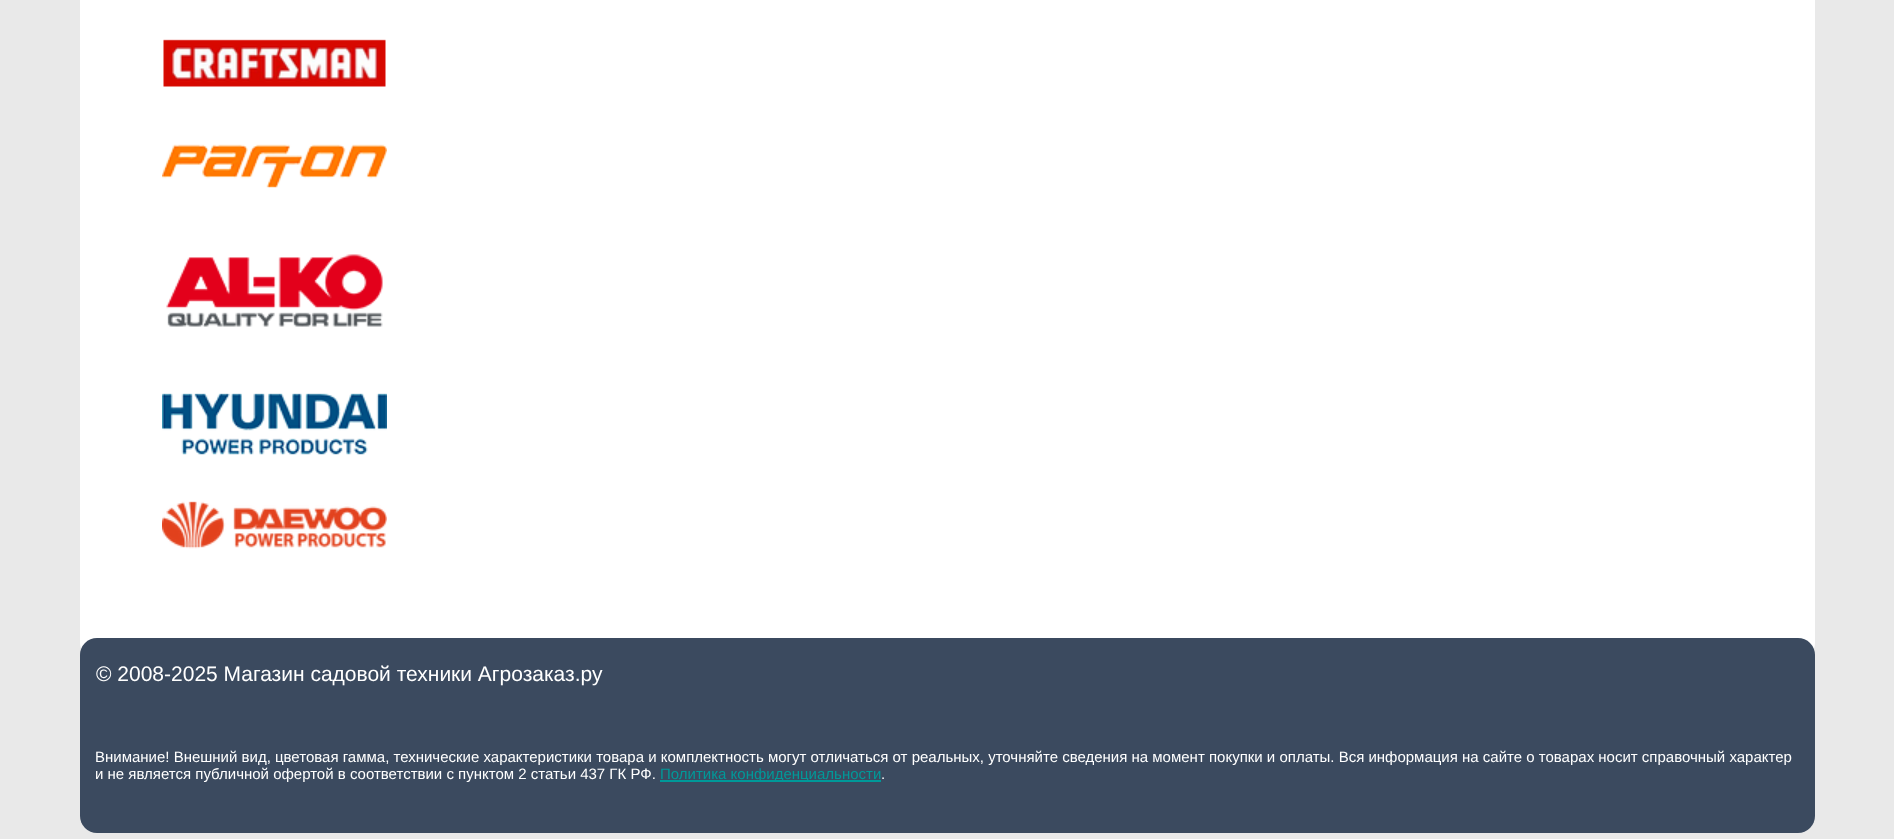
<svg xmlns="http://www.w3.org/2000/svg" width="1894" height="839">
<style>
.a{font:21px Liberation Sans;fill:#fff}
.b{font:15px Liberation Sans;fill:#fff}
.c{font:15px Liberation Sans;fill:#099}
</style>
<rect width="100%" height="100%" fill="#e9e9e9"/>
<rect fill="#fff" x="80" y="-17" width="1735" height="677" rx="17"/>
<image href="1.png" x="163" y="39" width="223" height="48"/>
<image href="2.png" x="162" y="144" width="225" height="44"/>
<image href="3.png" x="166" y="254" width="217" height="73"/>
<image href="4.png" x="162" y="393" width="225" height="62"/>
<image href="5.png" x="162" y="501" width="225" height="48"/>
<rect fill="#3b4a5f" x="80" y="638" width="1735" height="195" rx="17"/>
<path fill="#099" d="M660 780h221v2H660z"/>
<text class="a" x="96" y="681">© 2008-2025 Магазин садовой техники Агрозаказ.ру</text>
<text class="b" x="95" y="762">Внимание! Внешний вид, цветовая гамма, технические характеристики товара и комплектность могут отличаться от реальных, уточняйте сведения на момент покупки и оплаты. Вся информация на сайте о товарах носит справочный характер</text>
<text class="b" x="95" y="779">и не является публичной офертой в соответствии с пунктом 2 статьи 437 ГК РФ.</text>
<text class="c" x="660" y="779">Политика конфиденциальности</text>
<text class="b" x="881" y="779">.</text>
</svg>
